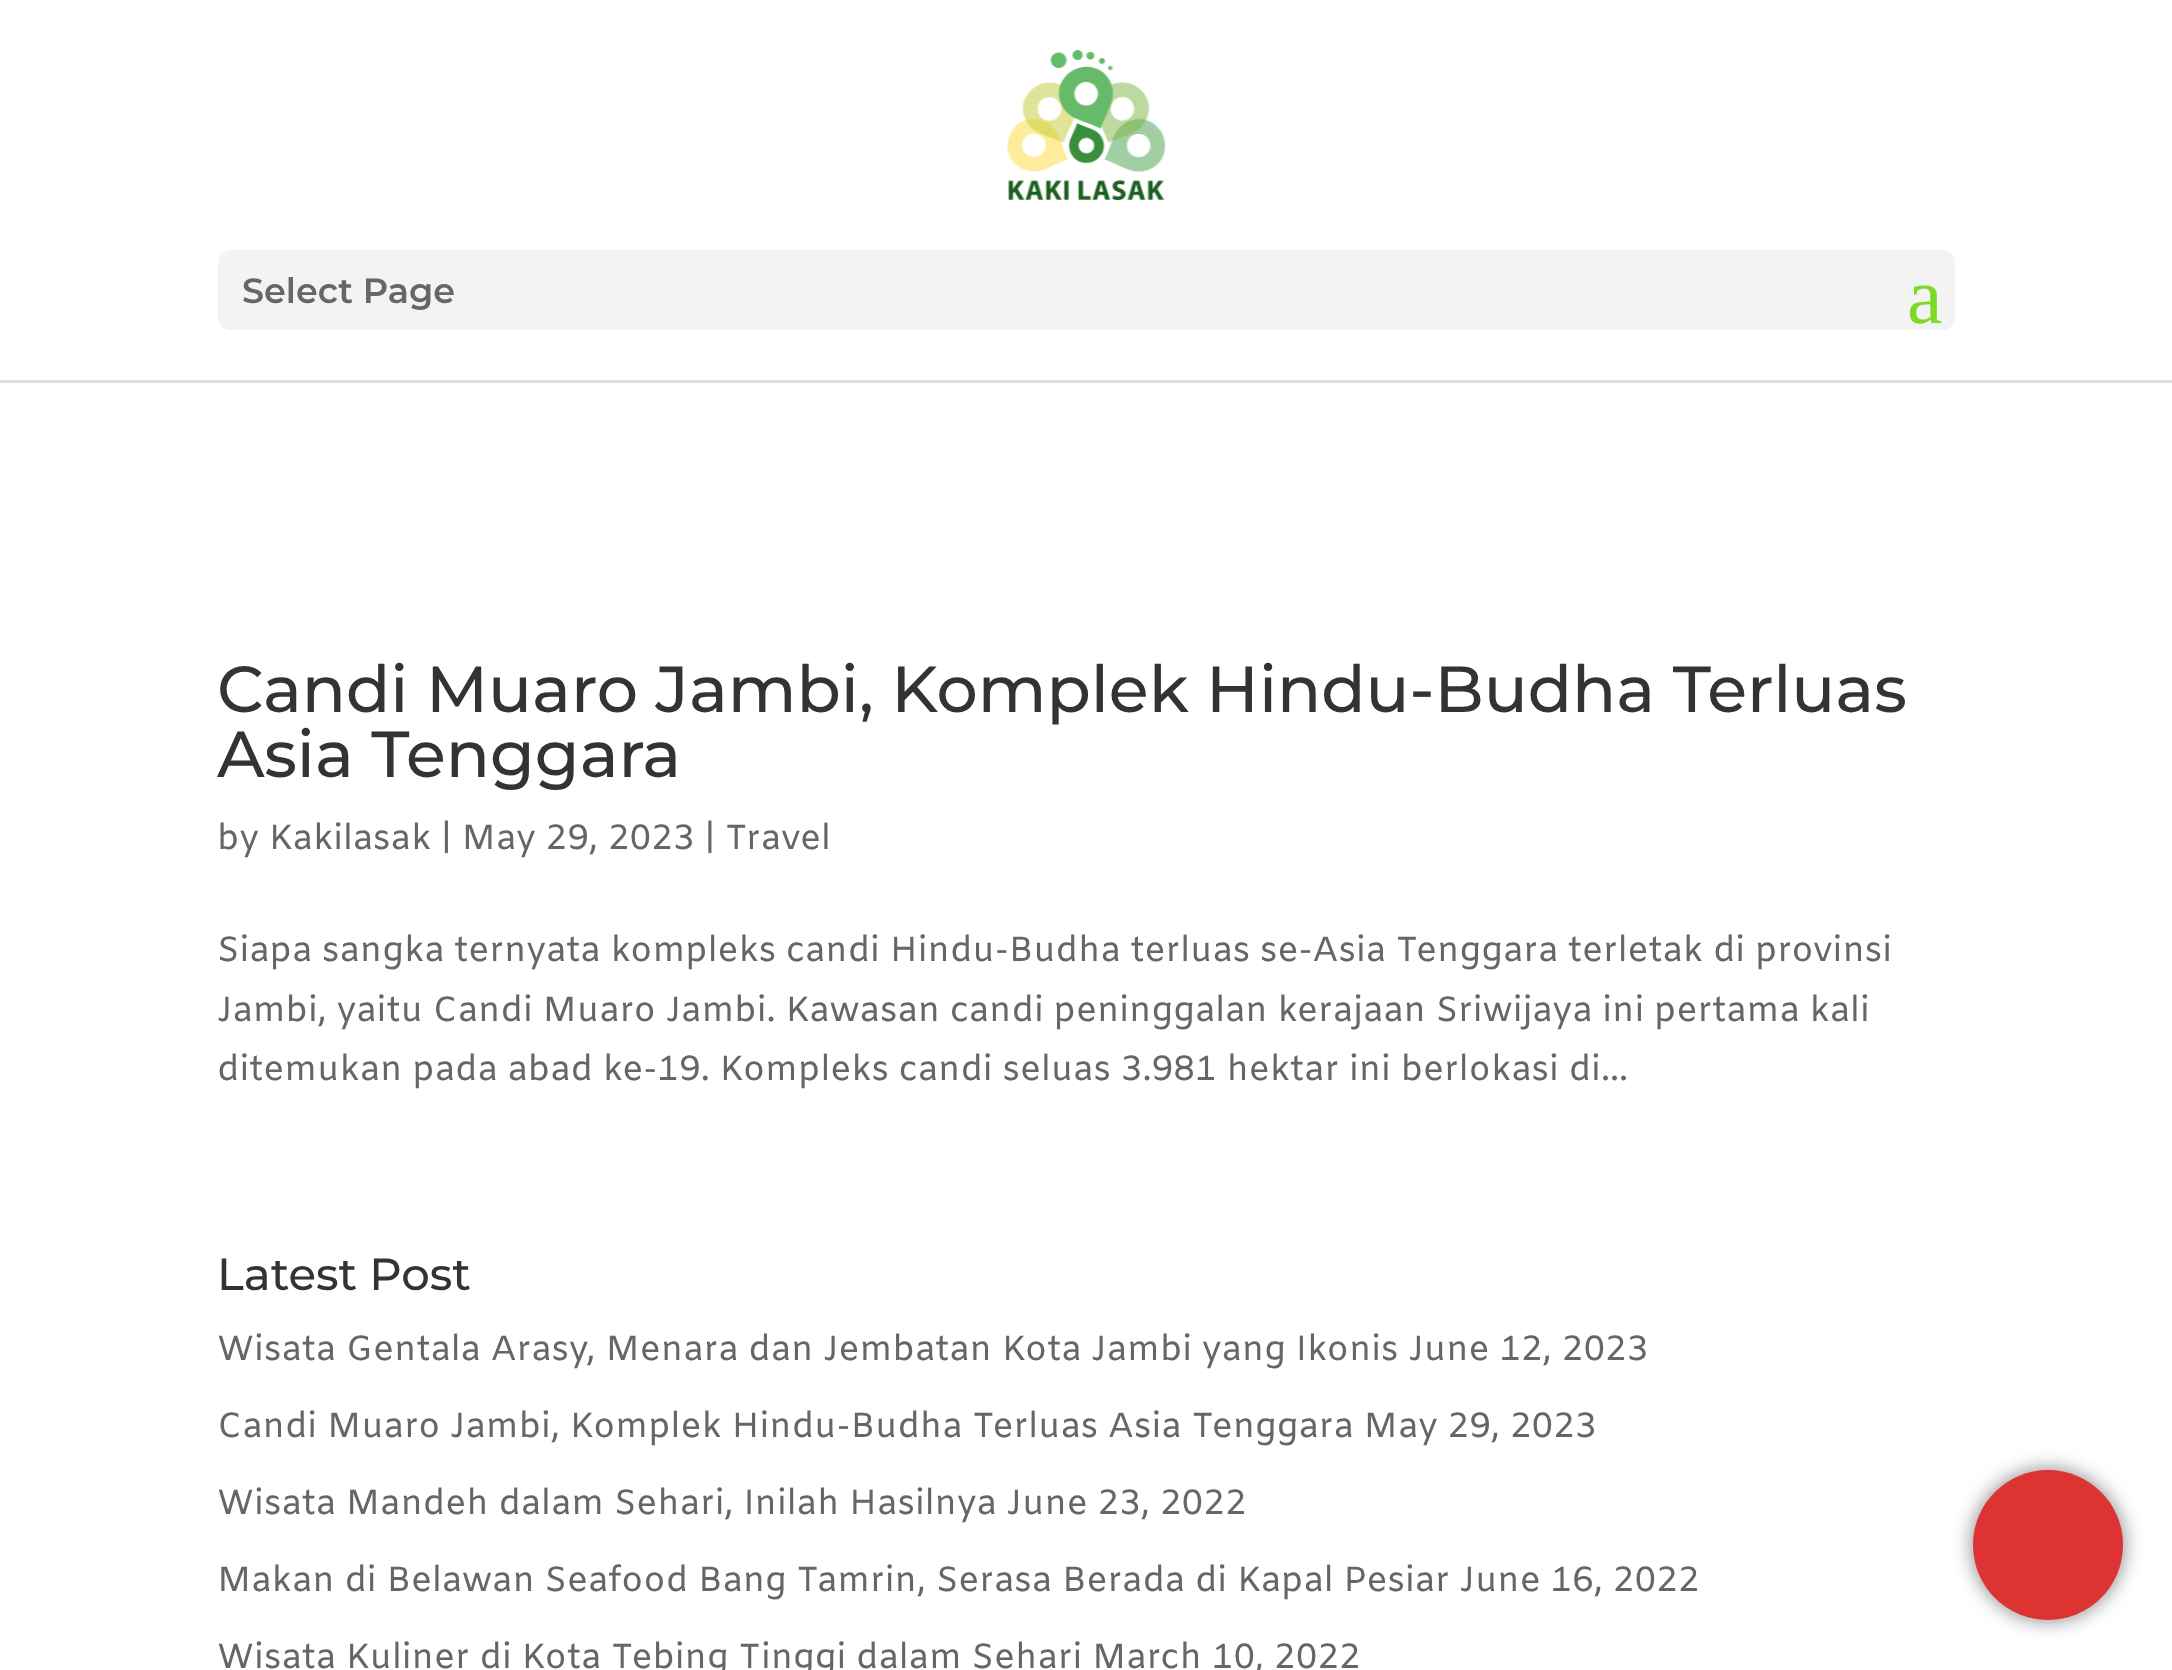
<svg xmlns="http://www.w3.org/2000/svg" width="2172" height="1670">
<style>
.a{font:600 35px Montserrat;fill:#666}
.b{font:80px Liberation Serif;fill:#7cda24}
.c{font:500 65px Montserrat;fill:#333}
.d{font:35px Amiko;fill:#666}
.e{font:500 45px Montserrat;fill:#333}
</style>
<rect width="100%" height="100%" fill="#fff"/>
<path fill="#ddd" d="M0 380h2172v3H0z"/>
<image href="1.png" x="1007" y="50" width="159" height="150"/>
<rect fill="#f3f3f3" x="218" y="250" width="1737" height="80" rx="13"/>
<rect fill="#00000080" filter="blur(10px)" x="1973" y="1470" width="150" height="150" rx="75"/>
<circle fill="#d33" cx="2048" cy="1545" r="75"/>
<text class="a" x="242" y="303">Select Page</text>
<text class="b" x="1907" y="323">a</text>
<text class="c" x="217" y="712">Candi Muaro Jambi, Komplek Hindu-Budha Terluas</text>
<text class="c" x="217" y="777">Asia Tenggara</text>
<text class="d" x="217" y="849">by Kakilasak | May 29, 2023 | Travel</text>
<text class="d" x="217" y="961">Siapa sangka ternyata kompleks candi Hindu-Budha terluas se-Asia Tenggara terletak di provinsi</text>
<text class="d" x="217" y="1021">Jambi, yaitu Candi Muaro Jambi. Kawasan candi peninggalan kerajaan Sriwijaya ini pertama kali</text>
<text class="d" x="217" y="1080">ditemukan pada abad ke-19. Kompleks candi seluas 3.981 hektar ini berlokasi di...</text>
<text class="e" x="217" y="1290">Latest Post</text>
<text class="d" x="217" y="1360">Wisata Gentala Arasy, Menara dan Jembatan Kota Jambi yang Ikonis June 12, 2023</text>
<text class="d" x="217" y="1437">Candi Muaro Jambi, Komplek Hindu-Budha Terluas Asia Tenggara May 29, 2023</text>
<text class="d" x="217" y="1514">Wisata Mandeh dalam Sehari, Inilah Hasilnya June 23, 2022</text>
<text class="d" x="217" y="1591">Makan di Belawan Seafood Bang Tamrin, Serasa Berada di Kapal Pesiar June 16, 2022</text>
<text class="d" x="217" y="1668">Wisata Kuliner di Kota Tebing Tinggi dalam Sehari March 10, 2022</text>
</svg>
